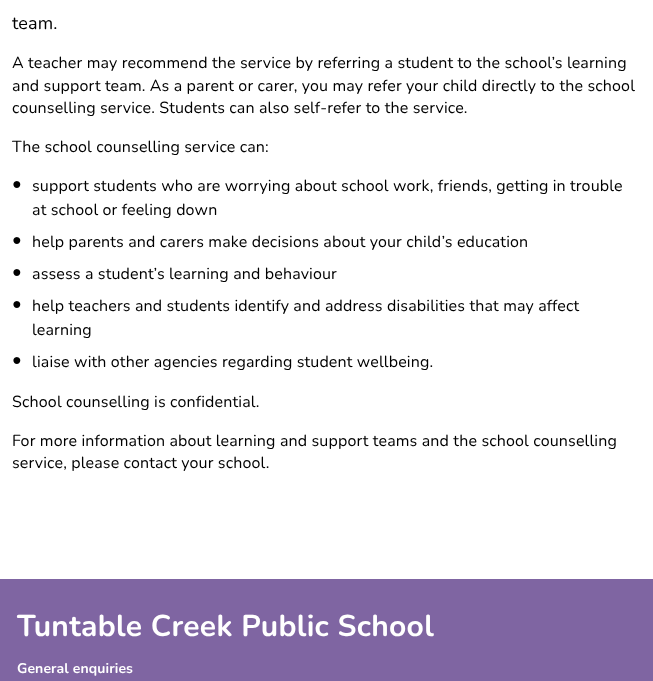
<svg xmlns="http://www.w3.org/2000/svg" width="653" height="681">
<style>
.a{font:18px Nunito;letter-spacing:0.15px;fill:#000}
.b{font:16px Nunito;letter-spacing:0.15px;fill:#000}
.c{font:16px Liberation Sans;letter-spacing:0.15px;fill:#000}
.d{font:bold 30px Nunito;letter-spacing:0.3px;fill:#fff}
.e{font:bold 14px Nunito;letter-spacing:0.1px;fill:#fff}
</style>
<rect width="100%" height="100%" fill="#fff"/>
<path fill="#7f65a2" d="M0 579h653v102H0z"/>
<text class="a" x="12" y="29">team.</text>
<text class="b" x="12" y="68">A teacher may recommend the service by referring a student to the school’s learning</text>
<text class="b" x="12" y="91">and support team. As a parent or carer, you may refer your child directly to the school</text>
<text class="b" x="12" y="113">counselling service. Students can also self-refer to the service.</text>
<text class="b" x="12" y="152">The school counselling service can:</text>
<text class="c" x="12" y="189">●</text>
<text class="b" x="32" y="191">support students who are worrying about school work, friends, getting in trouble</text>
<text class="b" x="32" y="215">at school or feeling down</text>
<text class="c" x="12" y="245">●</text>
<text class="b" x="32" y="247">help parents and carers make decisions about your child’s education</text>
<text class="c" x="12" y="277">●</text>
<text class="b" x="32" y="279">assess a student’s learning and behaviour</text>
<text class="c" x="12" y="309">●</text>
<text class="b" x="32" y="311">help teachers and students identify and address disabilities that may affect</text>
<text class="b" x="32" y="335">learning</text>
<text class="c" x="12" y="365">●</text>
<text class="b" x="32" y="367">liaise with other agencies regarding student wellbeing.</text>
<text class="b" x="12" y="407">School counselling is confidential.</text>
<text class="b" x="12" y="446">For more information about learning and support teams and the school counselling</text>
<text class="b" x="12" y="468">service, please contact your school.</text>
<text class="d" x="17" y="636">Tuntable Creek Public School</text>
<text class="e" x="17" y="673">General enquiries</text>
</svg>
